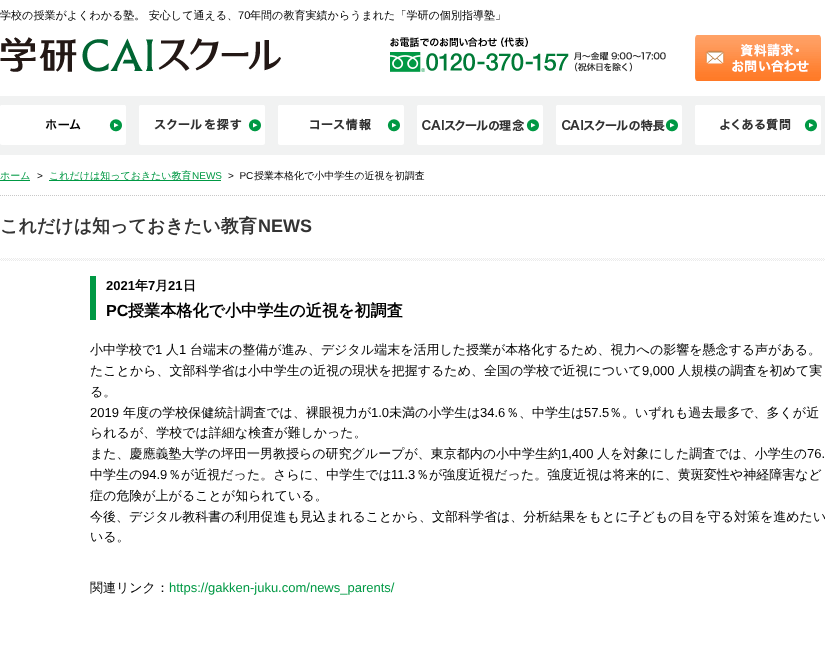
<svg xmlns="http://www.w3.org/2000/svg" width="825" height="665">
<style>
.a{font:500 11.05px WenQuanYi Zen Hei;fill:#000}
.b{font:11.05px Liberation Sans;fill:#000}
.c{font:500 10px WenQuanYi Zen Hei;fill:#094}
.d{font:10px Liberation Sans;fill:#000}
.e{font:10px Liberation Sans;fill:#094}
.f{font:500 10px WenQuanYi Zen Hei;fill:#000}
.g{font:bold 18px WenQuanYi Zen Hei;fill:#333}
.h{font:bold 18px Liberation Sans;fill:#333}
.i{font:bold 13px Liberation Sans;fill:#000}
.j{font:bold 13px WenQuanYi Zen Hei;fill:#000}
.k{font:bold 16.1px Liberation Sans;fill:#000}
.l{font:bold 16.1px WenQuanYi Zen Hei;fill:#000}
.m{font:500 13px WenQuanYi Zen Hei;fill:#000}
.n{font:13px Liberation Sans;fill:#000}
.o{font:13px Liberation Sans;fill:#094}
</style>
<rect width="100%" height="100%" fill="#fff"/>
<image href="1.png" x="0" y="37" width="281" height="35"/>
<image href="2.png" x="390" y="37" width="276" height="35"/>
<image href="3.png" x="695" y="35" width="126" height="46"/>
<path fill="#f1f2f2" d="M0 96h825v59H0z"/>
<image href="4.png" x="0" y="105" width="126" height="40"/>
<image href="5.png" x="139" y="105" width="126" height="40"/>
<image href="6.png" x="278" y="105" width="126" height="40"/>
<image href="7.png" x="417" y="105" width="126" height="40"/>
<image href="8.png" x="556" y="105" width="126" height="40"/>
<image href="9.png" x="695" y="105" width="126" height="40"/>
<image href="10.png" x="0" y="195" width="825" height="1"/>
<path fill="#094" d="M0 180h30v1H0z"/>
<path fill="#094" d="M49 180h172v1H49z"/>
<image href="11.png" x="0" y="258" width="825" height="3"/>
<path fill="#094" d="M90 276h6v44H90z"/>
<text class="a" x="0" y="19">学校の授業がよくわかる塾。 安心して通える、</text>
<text class="b" x="238" y="19">70</text>
<text class="a" x="250" y="19">年間の教育実績からうまれた「学研の個別指導塾」</text>
<text class="c" x="0" y="179">ホーム</text>
<text class="d" x="37" y="179">&gt;</text>
<text class="c" x="49" y="179">これだけは知っておきたい教育</text>
<text class="e" x="192" y="179">NEWS</text>
<text class="d" xml:space="preserve" x="228" y="179">&gt;  PC</text>
<text class="f" x="254" y="179">授業本格化で小中学生の近視を初調査</text>
<text class="g" x="0" y="232">これだけは知っておきたい教育</text>
<text class="h" x="258" y="232">NEWS</text>
<text class="i" x="106" y="290">2021</text>
<text class="j" x="135" y="290">年</text>
<text class="i" x="148" y="290">7</text>
<text class="j" x="155" y="290">月</text>
<text class="i" x="168" y="290">21</text>
<text class="j" x="183" y="290">日</text>
<text class="k" x="106" y="316">PC</text>
<text class="l" x="128" y="316">授業本格化で小中学生の近視を初調査</text>
<text class="m" x="90" y="354">小中学校で</text>
<text class="n" x="155" y="354">1</text>
<text class="m" x="166" y="354">人</text>
<text class="n" x="179" y="354">1</text>
<text class="m" x="190" y="354">台端末の整備が進み、デジタル端末を活用した授業が本格化するため、視力への影響を懸念する声がある。</text>
<text class="m" x="90" y="375">たことから、文部科学省は小中学生の近視の現状を把握するため、全国の学校で近視について</text>
<text class="n" x="642" y="375">9,000</text>
<text class="m" x="678" y="375">人規模の調査を初めて実</text>
<text class="m" x="90" y="396">る。</text>
<text class="n" x="90" y="417">2019</text>
<text class="m" x="123" y="417">年度の学校保健統計調査では、裸眼視力が</text>
<text class="n" x="371" y="417">1.0</text>
<text class="m" x="389" y="417">未満の小学生は</text>
<text class="n" x="480" y="417">34.6</text>
<text class="m" x="506" y="417">％、中学生は</text>
<text class="n" x="584" y="417">57.5</text>
<text class="m" x="609" y="417">％。いずれも過去最多で、多くが近</text>
<text class="m" x="90" y="437">られるが、学校では詳細な検査が難しかった。</text>
<text class="m" x="90" y="458">また、慶應義塾大学の坪田一男教授らの研究グループが、東京都内の小中学生約</text>
<text class="n" x="561" y="458">1,400</text>
<text class="m" x="597" y="458">人を対象にした調査では、小学生の</text>
<text class="n" x="807" y="458">76.</text>
<text class="m" x="90" y="479">中学生の</text>
<text class="n" x="142" y="479">94.9</text>
<text class="m" x="168" y="479">％が近視だった。さらに、中学生では</text>
<text class="n" x="391" y="479">11.3</text>
<text class="m" x="416" y="479">％が強度近視だった。強度近視は将来的に、黄斑変性や神経障害など</text>
<text class="m" x="90" y="500">症の危険が上がることが知られている。</text>
<text class="m" x="90" y="521">今後、デジタル教科書の利用促進も見込まれることから、文部科学省は、分析結果をもとに子どもの目を守る対策を進めたい</text>
<text class="m" x="90" y="541">いる。</text>
<text class="m" x="90" y="592">関連リンク：</text>
<text class="o" x="169" y="592">https://gakken-juku.com/news_parents/</text>
</svg>
